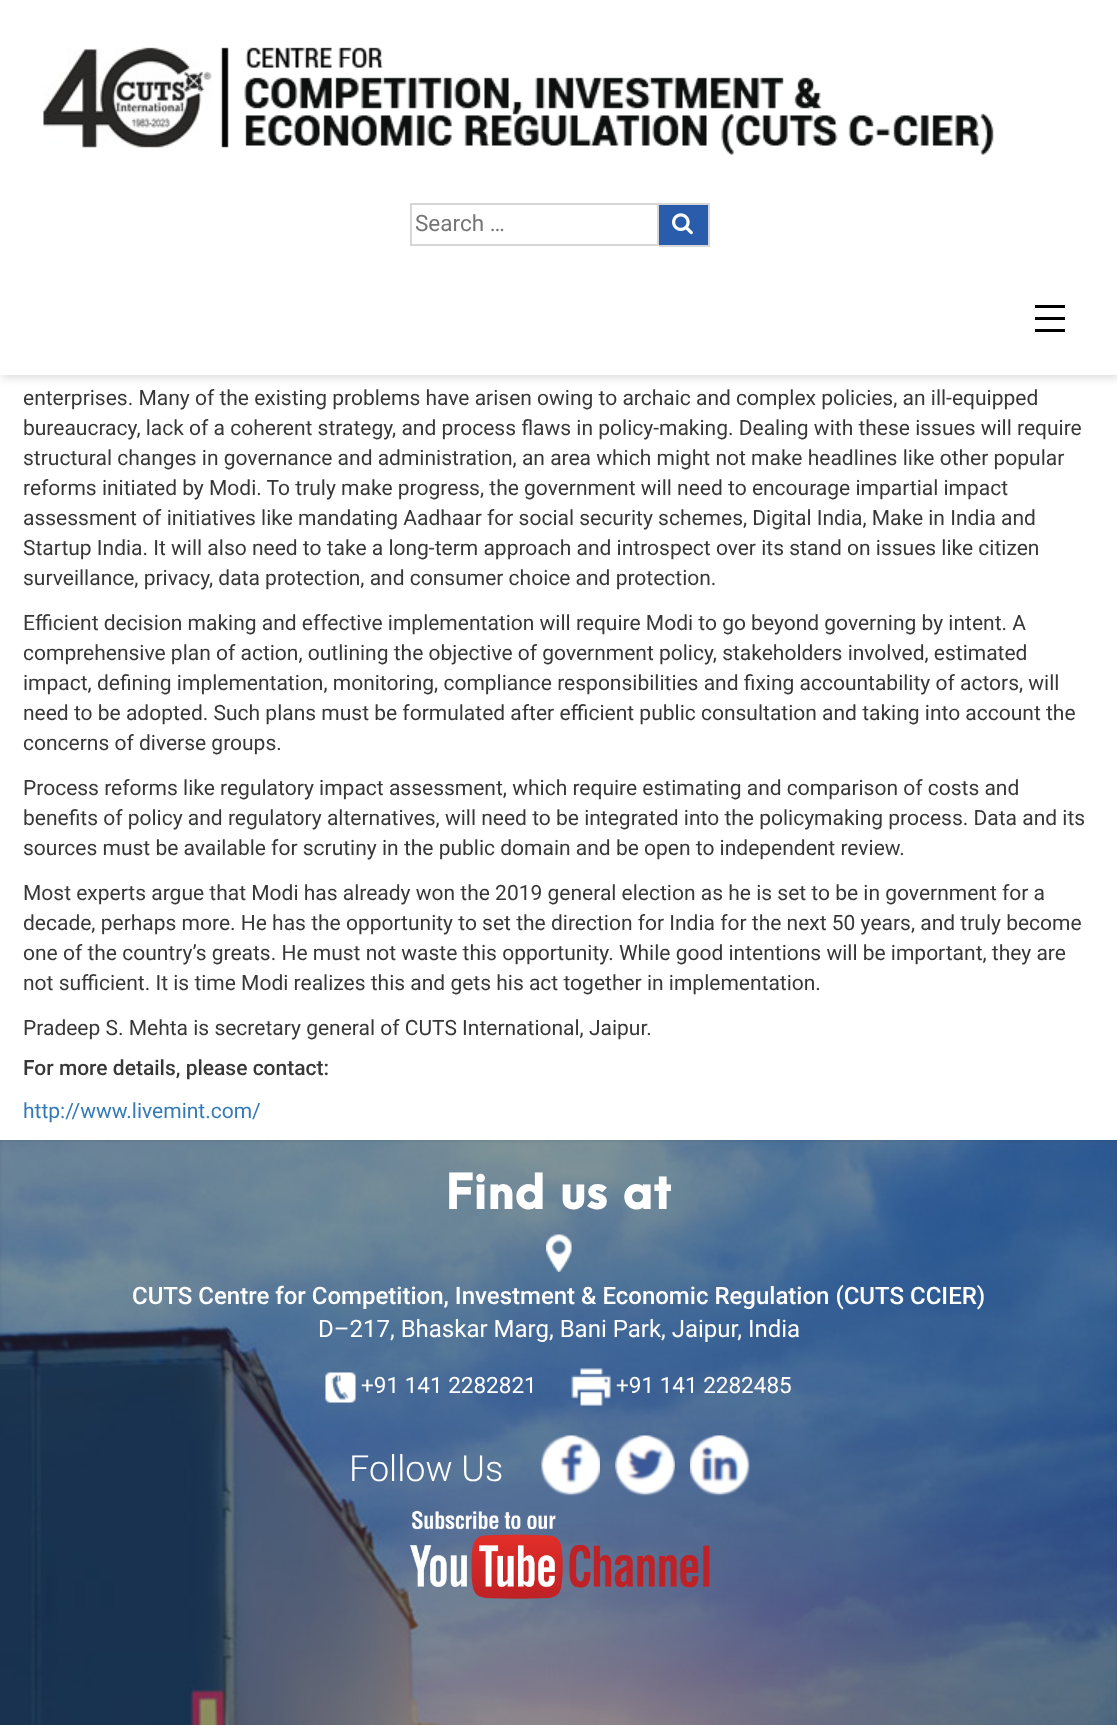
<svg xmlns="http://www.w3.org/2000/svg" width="1117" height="1725">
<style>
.a{font:22.5px Roboto;fill:#757575}
.b{font:21px Roboto;fill:#383838}
.c{font:500 21px Roboto;fill:#383838}
.d{font:21px Roboto;fill:#337ab7}
.e{font:900 45px 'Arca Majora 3';fill:#fff}
.f{font:500 24px Roboto;fill:#fff}
.g{font:24px Roboto;fill:#fff}
.h{font:22.5px Roboto;fill:#fff}
.i{font:300 36px Roboto;fill:#fff}
</style>
<rect width="100%" height="100%" fill="#fff"/>
<path fill="#dedede" filter="blur(4px)" d="M2 3h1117v375H2z"/>
<path fill="#fff" d="M0 0h1117v375H0z"/>
<image href="1.png" x="43" y="47" width="951" height="108"/>
<path fill="none" stroke="#d6d6d6" stroke-width="2" d="M411 204h247v41H411z"/>
<path fill="#295cab" d="M659 205h49v40H659z"/>
<path fill="#d6d6d6" d="M659 203h51v2H659z"/>
<path fill="#d6d6d6" d="M708 203h2v43H708z"/>
<path fill="#d6d6d6" d="M659 245h51v2H659z"/>
<image href="2.png" x="672" y="213" width="21" height="22"/>
<path fill="#000" d="M1035 305h30v3H1035z"/>
<path fill="#000" d="M1035 317h30v3H1035z"/>
<path fill="#000" d="M1035 329h30v3H1035z"/>
<image href="3.png" x="0" y="1140" width="1117" height="585"/>
<image href="4.png" x="546" y="1234" width="26" height="38"/>
<image href="5.png" x="325" y="1372" width="31" height="31"/>
<image href="6.png" x="571" y="1368" width="40" height="38"/>
<image href="7.png" x="541" y="1435" width="59" height="61"/>
<image href="8.png" x="615" y="1435" width="60" height="61"/>
<image href="9.png" x="690" y="1435" width="60" height="61"/>
<image href="10.png" x="409" y="1510" width="301" height="89"/>
<text class="a" x="415" y="231">Search …</text>
<text class="b" x="23" y="405">enterprises. Many of the existing problems have arisen owing to archaic and complex policies, an ill-equipped</text>
<text class="b" x="23" y="435">bureaucracy, lack of a coherent strategy, and process flaws in policy-making. Dealing with these issues will require</text>
<text class="b" x="23" y="465">structural changes in governance and administration, an area which might not make headlines like other popular</text>
<text class="b" x="23" y="495">reforms initiated by Modi. To truly make progress, the government will need to encourage impartial impact</text>
<text class="b" x="23" y="525">assessment of initiatives like mandating Aadhaar for social security schemes, Digital India, Make in India and</text>
<text class="b" x="23" y="555">Startup India. It will also need to take a long-term approach and introspect over its stand on issues like citizen</text>
<text class="b" x="23" y="585">surveillance, privacy, data protection, and consumer choice and protection.</text>
<text class="b" x="23" y="630">Efficient decision making and effective implementation will require Modi to go beyond governing by intent. A</text>
<text class="b" x="23" y="660">comprehensive plan of action, outlining the objective of government policy, stakeholders involved, estimated</text>
<text class="b" x="23" y="690">impact, defining implementation, monitoring, compliance responsibilities and fixing accountability of actors, will</text>
<text class="b" x="23" y="720">need to be adopted. Such plans must be formulated after efficient public consultation and taking into account the</text>
<text class="b" x="23" y="750">concerns of diverse groups.</text>
<text class="b" x="23" y="795">Process reforms like regulatory impact assessment, which require estimating and comparison of costs and</text>
<text class="b" x="23" y="825">benefits of policy and regulatory alternatives, will need to be integrated into the policymaking process. Data and its</text>
<text class="b" x="23" y="855">sources must be available for scrutiny in the public domain and be open to independent review.</text>
<text class="b" x="23" y="900">Most experts argue that Modi has already won the 2019 general election as he is set to be in government for a</text>
<text class="b" x="23" y="930">decade, perhaps more. He has the opportunity to set the direction for India for the next 50 years, and truly become</text>
<text class="b" x="23" y="960">one of the country’s greats. He must not waste this opportunity. While good intentions will be important, they are</text>
<text class="b" x="23" y="990">not sufficient. It is time Modi realizes this and gets his act together in implementation.</text>
<text class="b" x="23" y="1035">Pradeep S. Mehta is secretary general of CUTS International, Jaipur.</text>
<text class="c" x="23" y="1075">For more details, please contact:</text>
<text class="d" x="23" y="1118">http://www.livemint.com/</text>
<text class="e" x="446" y="1209">Find us at</text>
<text class="f" x="132" y="1304">CUTS Centre for Competition, Investment &amp; Economic Regulation (CUTS CCIER)</text>
<text class="g" x="318" y="1337">D–217, Bhaskar Marg, Bani Park, Jaipur, India</text>
<text class="h" x="361" y="1393">+91 141 2282821</text>
<text class="h" x="616" y="1393">+91 141 2282485</text>
<text class="i" x="349" y="1481">Follow Us</text>
</svg>
